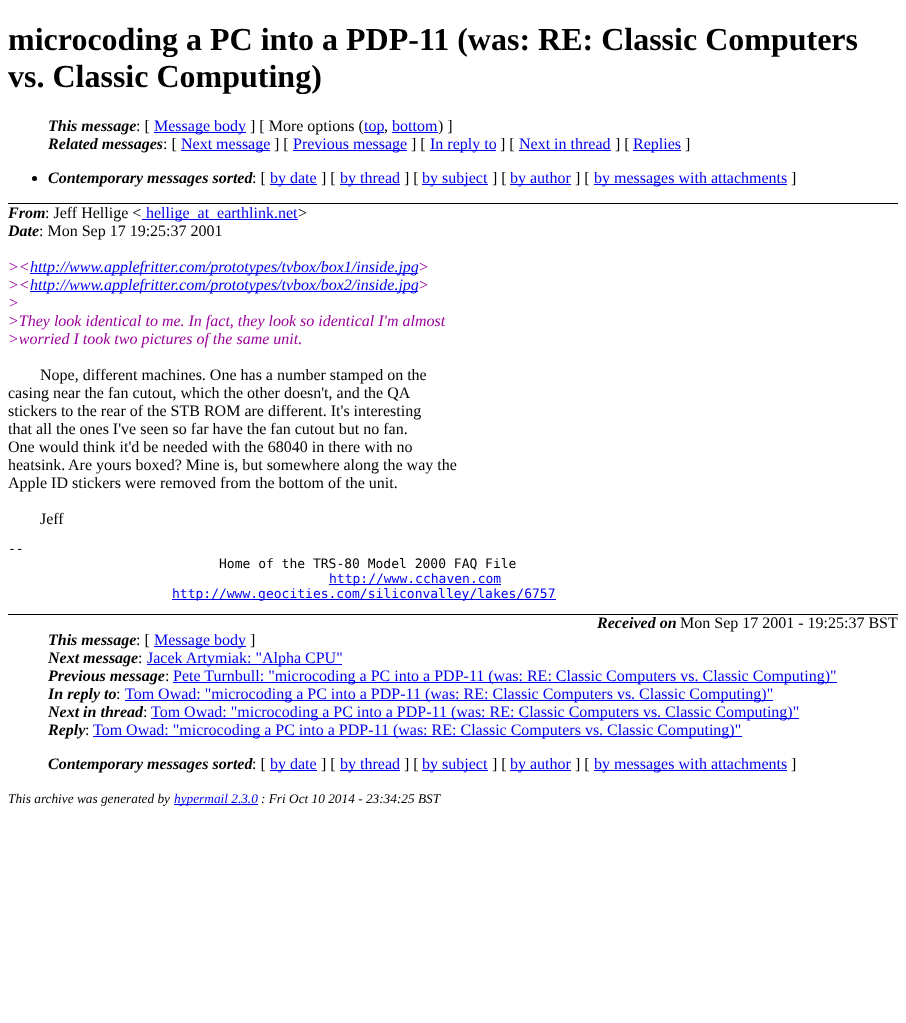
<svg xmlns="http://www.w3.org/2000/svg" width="906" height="1023">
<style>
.a{font:bold 32px Liberation Serif;fill:#000}
.b{font:italic bold 16px Liberation Serif;fill:#000}
.c{font:16px Liberation Serif;fill:#000}
.d{font:16px Liberation Serif;fill:#00e}
.e{font:italic 16px Liberation Serif;fill:#909}
.f{font:italic 16px Liberation Serif;fill:#00e}
.g{font:13px DejaVu Sans Mono;fill:#000}
.h{font:13px DejaVu Sans Mono;fill:#00e}
.i{font:italic 13.3px Liberation Serif;fill:#000}
.j{font:italic 13.3px Liberation Serif;fill:#00e}
</style>
<rect width="100%" height="100%" fill="#fff"/>
<path fill="#000" d="M8 203h890v1H8z"/>
<path fill="#00e" d="M154 132h92v1H154z"/>
<path fill="#00e" d="M364 132h20v1H364z"/>
<path fill="#00e" d="M392 132h46v1H392z"/>
<path fill="#00e" d="M181 150h89v1H181z"/>
<path fill="#00e" d="M293 150h114v1H293z"/>
<path fill="#00e" d="M430 150h66v1H430z"/>
<path fill="#00e" d="M519 150h92v1H519z"/>
<path fill="#00e" d="M633 150h48v1H633z"/>
<circle fill="#000" cx="34.5" cy="178.5" r="2.5"/>
<path fill="#00e" d="M270 184h47v1H270z"/>
<path fill="#00e" d="M340 184h60v1H340z"/>
<path fill="#00e" d="M422 184h66v1H422z"/>
<path fill="#00e" d="M510 184h61v1H510z"/>
<path fill="#00e" d="M594 184h193v1H594z"/>
<path fill="#00e" d="M142 219h156v1H142z"/>
<path fill="#00e" d="M30 273h388v1H30z"/>
<path fill="#00e" d="M30 291h388v1H30z"/>
<path fill="#00e" d="M329 584h172v1H329z"/>
<path fill="#00e" d="M172 599h384v1H172z"/>
<path fill="#000" d="M8 614h890v1H8z"/>
<path fill="#00e" d="M154 646h92v1H154z"/>
<path fill="#00e" d="M147 664h195v1H147z"/>
<path fill="#00e" d="M173 682h664v1H173z"/>
<path fill="#00e" d="M125 700h648v1H125z"/>
<path fill="#00e" d="M151 718h648v1H151z"/>
<path fill="#00e" d="M93 736h649v1H93z"/>
<path fill="#00e" d="M270 770h47v1H270z"/>
<path fill="#00e" d="M340 770h60v1H340z"/>
<path fill="#00e" d="M422 770h66v1H422z"/>
<path fill="#00e" d="M510 770h61v1H510z"/>
<path fill="#00e" d="M594 770h193v1H594z"/>
<path fill="#00e" d="M174 804h84v1H174z"/>
<text class="a" x="8" y="50">microcoding a PC into a PDP-11 (was: RE: Classic Computers</text>
<text class="a" x="8" y="87">vs. Classic Computing)</text>
<text class="b" x="48" y="131">This message</text>
<text class="c" x="136" y="131">: [</text>
<text class="d" x="154" y="131">Message body</text>
<text class="c" x="250" y="131">] [ More options (</text>
<text class="d" x="364" y="131">top</text>
<text class="c" x="384" y="131">,</text>
<text class="d" x="392" y="131">bottom</text>
<text class="c" x="438" y="131">) ]</text>
<text class="b" x="48" y="149">Related messages</text>
<text class="c" x="163" y="149">: [</text>
<text class="d" x="181" y="149">Next message</text>
<text class="c" x="274" y="149">] [</text>
<text class="d" x="293" y="149">Previous message</text>
<text class="c" x="411" y="149">] [</text>
<text class="d" x="430" y="149">In reply to</text>
<text class="c" x="500" y="149">] [</text>
<text class="d" x="519" y="149">Next in thread</text>
<text class="c" x="615" y="149">] [</text>
<text class="d" x="633" y="149">Replies</text>
<text class="c" x="685" y="149">]</text>
<text class="b" x="48" y="183">Contemporary messages sorted</text>
<text class="c" x="252" y="183">: [</text>
<text class="d" x="270" y="183">by date</text>
<text class="c" x="321" y="183">] [</text>
<text class="d" x="340" y="183">by thread</text>
<text class="c" x="404" y="183">] [</text>
<text class="d" x="422" y="183">by subject</text>
<text class="c" x="492" y="183">] [</text>
<text class="d" x="510" y="183">by author</text>
<text class="c" x="575" y="183">] [</text>
<text class="d" x="594" y="183">by messages with attachments</text>
<text class="c" x="791" y="183">]</text>
<text class="b" x="8" y="218">From</text>
<text class="c" x="45" y="218">: Jeff Hellige &lt;</text>
<text class="d" x="146" y="218">hellige_at_earthlink.net</text>
<text class="c" x="298" y="218">&gt;</text>
<text class="b" x="8" y="236">Date</text>
<text class="c" x="39" y="236">: Mon Sep 17 19:25:37 2001</text>
<text class="e" x="8" y="272">&gt;&lt;</text>
<text class="f" x="30" y="272">http://www.applefritter.com/prototypes/tvbox/box1/inside.jpg</text>
<text class="e" x="418" y="272">&gt;</text>
<text class="e" x="8" y="290">&gt;&lt;</text>
<text class="f" x="30" y="290">http://www.applefritter.com/prototypes/tvbox/box2/inside.jpg</text>
<text class="e" x="418" y="290">&gt;</text>
<text class="e" x="8" y="308">&gt;</text>
<text class="e" x="8" y="326">&gt;They look identical to me. In fact, they look so identical I'm almost</text>
<text class="e" x="8" y="344">&gt;worried I took two pictures of the same unit.</text>
<text class="c" x="40" y="380">Nope, different machines. One has a number stamped on the</text>
<text class="c" x="8" y="398">casing near the fan cutout, which the other doesn't, and the QA</text>
<text class="c" x="8" y="416">stickers to the rear of the STB ROM are different. It's interesting</text>
<text class="c" x="8" y="434">that all the ones I've seen so far have the fan cutout but no fan.</text>
<text class="c" x="8" y="452">One would think it'd be needed with the 68040 in there with no</text>
<text class="c" x="8" y="470">heatsink.</text>
<text class="c" x="68" y="470">Are yours boxed? Mine is, but somewhere along the way the</text>
<text class="c" x="8" y="488">Apple ID stickers were removed from the bottom of the unit.</text>
<text class="c" x="40" y="524">Jeff</text>
<text class="g" x="8" y="553">--</text>
<text class="g" x="219" y="568">Home of the TRS-80 Model 2000 FAQ File</text>
<text class="h" x="329" y="583">http://www.cchaven.com</text>
<text class="h" x="172" y="598">http://www.geocities.com/siliconvalley/lakes/6757</text>
<text class="b" x="597" y="628">Received on</text>
<text class="c" x="680" y="628">Mon Sep 17 2001 - 19:25:37 BST</text>
<text class="b" x="48" y="645">This message</text>
<text class="c" x="136" y="645">: [</text>
<text class="d" x="154" y="645">Message body</text>
<text class="c" x="250" y="645">]</text>
<text class="b" x="48" y="663">Next message</text>
<text class="c" x="138" y="663">:</text>
<text class="d" x="147" y="663">Jacek Artymiak: "Alpha CPU"</text>
<text class="b" x="48" y="681">Previous message</text>
<text class="c" x="165" y="681">:</text>
<text class="d" x="173" y="681">Pete Turnbull: "microcoding a PC into a PDP-11 (was: RE: Classic Computers vs. Classic Computing)"</text>
<text class="b" x="48" y="699">In reply to</text>
<text class="c" x="116" y="699">:</text>
<text class="d" x="125" y="699">Tom Owad: "microcoding a PC into a PDP-11 (was: RE: Classic Computers vs. Classic Computing)"</text>
<text class="b" x="48" y="717">Next in thread</text>
<text class="c" x="143" y="717">:</text>
<text class="d" x="151" y="717">Tom Owad: "microcoding a PC into a PDP-11 (was: RE: Classic Computers vs. Classic Computing)"</text>
<text class="b" x="48" y="735">Reply</text>
<text class="c" x="85" y="735">:</text>
<text class="d" x="93" y="735">Tom Owad: "microcoding a PC into a PDP-11 (was: RE: Classic Computers vs. Classic Computing)"</text>
<text class="b" x="48" y="769">Contemporary messages sorted</text>
<text class="c" x="252" y="769">: [</text>
<text class="d" x="270" y="769">by date</text>
<text class="c" x="321" y="769">] [</text>
<text class="d" x="340" y="769">by thread</text>
<text class="c" x="404" y="769">] [</text>
<text class="d" x="422" y="769">by subject</text>
<text class="c" x="492" y="769">] [</text>
<text class="d" x="510" y="769">by author</text>
<text class="c" x="575" y="769">] [</text>
<text class="d" x="594" y="769">by messages with attachments</text>
<text class="c" x="791" y="769">]</text>
<text class="i" x="8" y="803">This archive was generated by</text>
<text class="j" x="174" y="803">hypermail 2.3.0</text>
<text class="i" x="261" y="803">: Fri Oct 10 2014 - 23:34:25 BST</text>
</svg>
